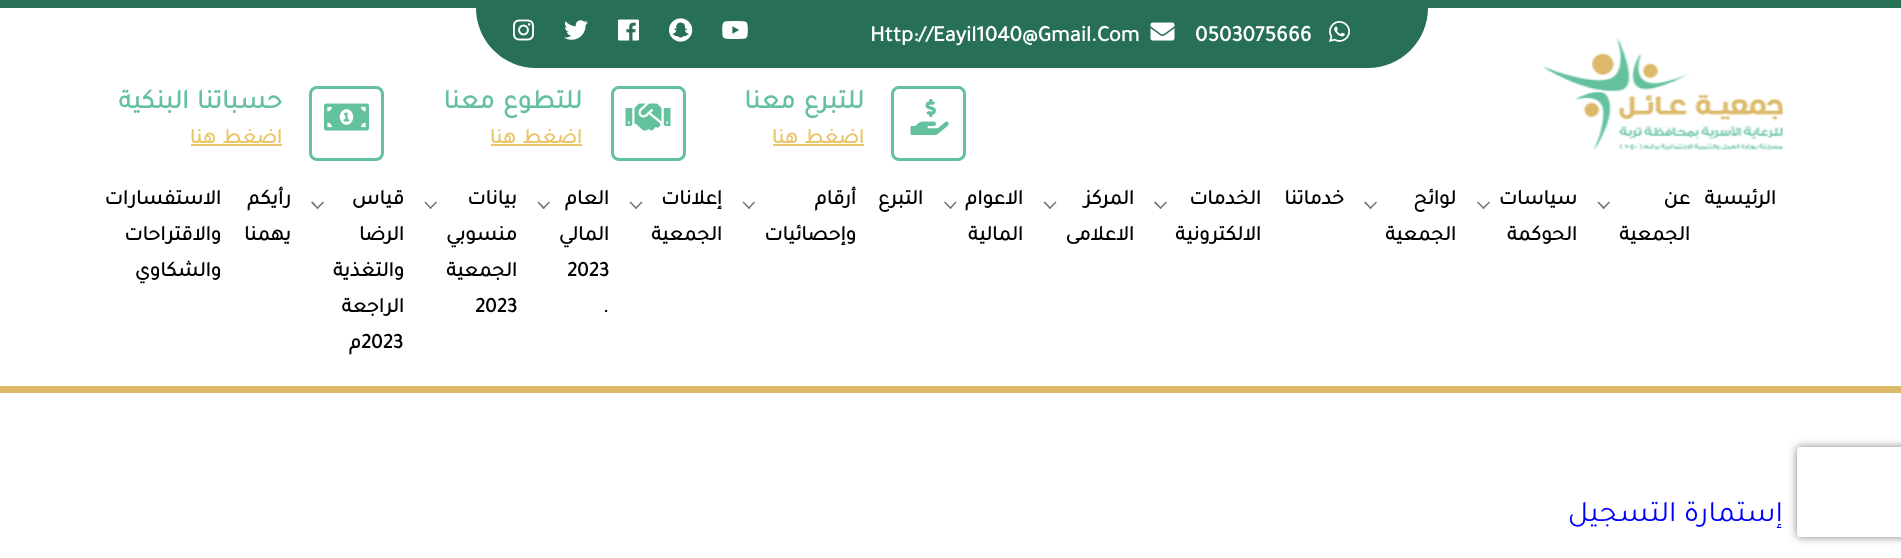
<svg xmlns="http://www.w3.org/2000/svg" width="1901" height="558">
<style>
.a{font:bold 22.5px Tajawal;fill:#fff}
.b{font:bold 27px Tajawal;direction:rtl;fill:#63c19d}
.c{font:bold 21px Tajawal;direction:rtl;fill:#eac66b}
.d{font:bold 21px Tajawal;direction:rtl;fill:#000}
.e{font:bold 21px Tajawal;fill:#000}
.f{font:30px Tajawal;direction:rtl;fill:#00f}
</style>
<defs>
<clipPath id="clip1"><path d="M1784 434h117v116h-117zm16 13h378c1.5 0 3 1.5 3 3v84c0 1.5-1.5 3-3 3h-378c-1.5 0-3-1.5-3-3v-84c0-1.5 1.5-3 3-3z" clip-rule="evenodd"/></clipPath>
</defs>
<rect width="100%" height="100%" fill="#fff"/>
<g clip-path="url(#clip1)">
<rect fill="#808080" filter="blur(4px)" x="1797" y="447" width="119" height="90" rx="3"/>
</g>
<path fill="#287055" d="M0 0h1901v8H0z"/>
<path fill="#287055" d="M476 8h952c0 33-27 60-60 60h-832c-33 0-60-27-60-60z"/>
<image href="1.png" x="1329" y="21" width="21" height="21"/>
<image href="2.png" x="1150" y="22" width="25" height="19"/>
<image href="3.png" x="722" y="21" width="26" height="18"/>
<image href="4.png" x="669" y="18" width="24" height="24"/>
<image href="5.png" x="618" y="19" width="21" height="22"/>
<image href="6.png" x="564" y="20" width="24" height="20"/>
<image href="7.png" x="513" y="19" width="21" height="22"/>
<image href="8.png" x="1543" y="38" width="240" height="112"/>
<rect fill="none" stroke="#63c19d" stroke-width="3" x="892.5" y="87.5" width="72" height="72" rx="6.5"/>
<image href="9.png" x="910" y="99" width="39" height="36"/>
<path fill="#eac66b" d="M773 144h91v2H773z"/>
<rect fill="none" stroke="#63c19d" stroke-width="3" x="612.5" y="87.5" width="72" height="72" rx="6.5"/>
<image href="10.png" x="625" y="103" width="46" height="28"/>
<path fill="#eac66b" d="M491 144h91v2H491z"/>
<rect fill="none" stroke="#63c19d" stroke-width="3" x="310.5" y="87.5" width="72" height="72" rx="6.5"/>
<image href="11.png" x="324" y="103" width="45" height="28"/>
<path fill="#eac66b" d="M191 144h91v2H191z"/>
<path fill="#dbb968" d="M0 386h1901v7H0z"/>
<path fill="#6f6f6f" d="M1609 201.5l1 1l-6.5 6.5l-1-1z"/>
<path fill="#6f6f6f" d="M1598.5 201.5l6.5 6.5l-1.5 1l-6-6.5z"/>
<path fill="#6f6f6f" d="M1489 201.5l1 1l-6.5 6.5l-1-1z"/>
<path fill="#6f6f6f" d="M1478 201.5l6.5 6.5l-1 1l-6.5-6.5z"/>
<path fill="#6f6f6f" d="M1376 201.5l1 1l-6.5 6.5l-1-1z"/>
<path fill="#6f6f6f" d="M1365.5 201.5l6 6.5l-1 1l-6.5-6.5z"/>
<path fill="#6f6f6f" d="M1166 201.5l1 1l-6.5 6.5l-1-1z"/>
<path fill="#6f6f6f" d="M1155.5 201.5l6 6.5l-1 1l-6.5-6.5z"/>
<path fill="#6f6f6f" d="M1055.5 201.5l1 1l-6.5 6.5l-1-1z"/>
<path fill="#6f6f6f" d="M1045 201.5l6 6.5l-1 1l-6.5-6.5z"/>
<path fill="#6f6f6f" d="M955.5 201.5l1 1l-6 6.5l-1-1z"/>
<path fill="#6f6f6f" d="M945 201.5l6.5 6.5l-1 1l-6.5-6.5z"/>
<path fill="#6f6f6f" d="M754 201.5l1 1l-6 6.5l-1-1z"/>
<path fill="#6f6f6f" d="M743.5 201.5l6.5 6.5l-1 1l-6.5-6.5z"/>
<path fill="#6f6f6f" d="M641.5 201.5l1 1l-6.5 6.5l-1-1z"/>
<path fill="#6f6f6f" d="M630.5 201.5l6.5 6.5l-1 1l-6.5-6.5z"/>
<path fill="#6f6f6f" d="M549 201.5l1 1l-6.5 6.5l-1-1z"/>
<path fill="#6f6f6f" d="M538.5 201.5l6.5 6.5l-1.5 1l-6-6.5z"/>
<path fill="#6f6f6f" d="M436 201.5l1 1l-6.5 6.5l-1-1z"/>
<path fill="#6f6f6f" d="M425.5 201.5l6 6.5l-1 1l-6-6.5z"/>
<path fill="#6f6f6f" d="M323 201.5l1 1l-6.5 6.5l-1-1z"/>
<path fill="#6f6f6f" d="M312.5 201.5l6 6.5l-1 1l-6.5-6.5z"/>
<text class="a" x="1195" y="41">0503075666</text>
<text class="a" x="870" y="41">Http://Eayil1040@Gmail.Com</text>
<text class="b" x="864" y="108" word-spacing="2">للتبرع معنا</text>
<text class="c" x="864" y="143" word-spacing="2">اضغط هنا</text>
<text class="b" x="582" y="108" word-spacing="2">للتطوع معنا</text>
<text class="c" x="582" y="143" word-spacing="2">اضغط هنا</text>
<text class="b" x="282" y="108" word-spacing="2">حسباتنا البنكية</text>
<text class="c" x="282" y="143" word-spacing="2">اضغط هنا</text>
<text class="d" x="1776" y="204">الرئيسية</text>
<text class="d" x="1690" y="204">عن</text>
<text class="d" x="1690" y="240">الجمعية</text>
<text class="d" x="1577" y="204">سياسات</text>
<text class="d" x="1577" y="240">الحوكمة</text>
<text class="d" x="1456" y="204">لوائح</text>
<text class="d" x="1456" y="240">الجمعية</text>
<text class="d" x="1344" y="204">خدماتنا</text>
<text class="d" x="1261" y="204">الخدمات</text>
<text class="d" x="1261" y="240">الالكترونية</text>
<text class="d" x="1134" y="204">المركز</text>
<text class="d" x="1134" y="240">الاعلامى</text>
<text class="d" x="1023" y="204">الاعوام</text>
<text class="d" x="1023" y="240">المالية</text>
<text class="d" x="923" y="204">التبرع</text>
<text class="d" x="856" y="204">أرقام</text>
<text class="d" x="856" y="240">وإحصائيات</text>
<text class="d" x="722" y="204">إعلانات</text>
<text class="d" x="722" y="240">الجمعية</text>
<text class="d" x="609" y="204">العام</text>
<text class="d" x="609" y="240">المالي</text>
<text class="e" x="567" y="276">2023</text>
<text class="e" x="603" y="312">.</text>
<text class="d" x="517" y="204">بيانات</text>
<text class="d" x="517" y="240">منسوبي</text>
<text class="d" x="517" y="276">الجمعية</text>
<text class="e" x="475" y="312">2023</text>
<text class="d" x="404" y="204">قياس</text>
<text class="d" x="404" y="240">الرضا</text>
<text class="d" x="404" y="276">والتغذية</text>
<text class="d" x="404" y="312">الراجعة</text>
<text class="e" x="361" y="348">2023</text>
<text class="d" x="361" y="348">م</text>
<text class="d" x="291" y="204">رأيكم</text>
<text class="d" x="291" y="240">يهمنا</text>
<text class="d" x="221" y="204">الاستفسارات</text>
<text class="d" x="221" y="240">والاقتراحات</text>
<text class="d" x="221" y="276">والشكاوي</text>
<text class="f" x="1783" y="521">إستمارة التسجيل</text>
</svg>
